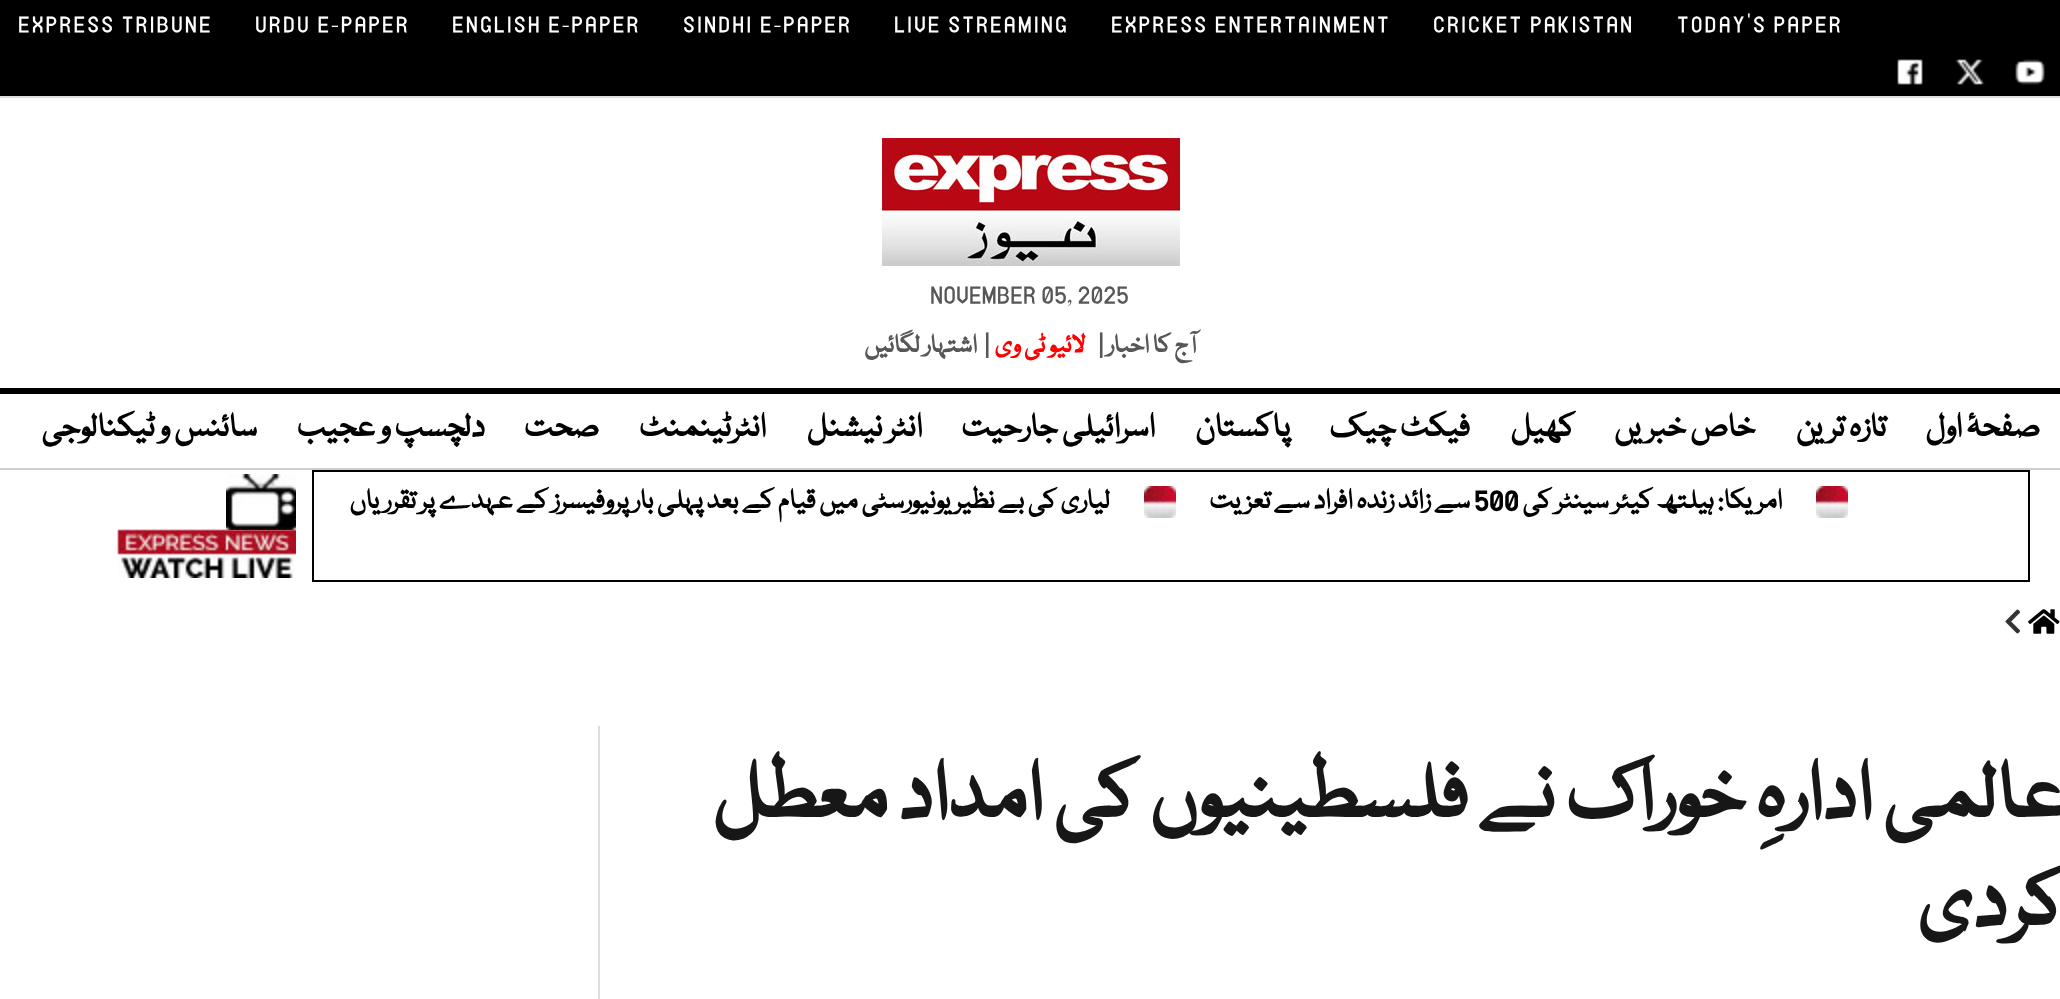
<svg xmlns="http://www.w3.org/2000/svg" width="2060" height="999">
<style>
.a{font:24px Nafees;letter-spacing:2px;fill:#fff}
.b{font:26px Nafees;fill:#575757}
.c{font:bold 28px Nafees;direction:rtl;fill:#575757}
.d{font:bold 28px Nafees;fill:#575757}
.e{font:bold 28px Nafees;direction:rtl;fill:#f00}
.f{font:bold 36px Nafees;direction:rtl;fill:#000}
.g{font:bold 30px Nafees;direction:rtl;fill:#000}
.h{font:bold 30px Nafees;fill:#000}
.i{font:bold 88px Nafees;direction:rtl;fill:#171717}
</style>
<rect width="100%" height="100%" fill="#fff"/>
<path fill="#000" d="M0 0h2060v96H0z"/>
<path fill="#dedede" d="M0 96h2060v2H0z"/>
<image href="1.png" x="2015" y="59" width="30" height="26"/>
<image href="2.png" x="1955" y="59" width="30" height="26"/>
<image href="3.png" x="1897" y="59" width="26" height="26"/>
<image href="4.png" x="882" y="138" width="298" height="128"/>
<path fill="#000" d="M0 388h2060v6H0z"/>
<path fill="#cecece" d="M0 468h2060v2H0z"/>
<path fill="none" stroke="#000" stroke-width="2" d="M313 471h1716v110H313z"/>
<image href="5.png" x="1816" y="486" width="32" height="32"/>
<image href="5.png" x="1144" y="486" width="32" height="32"/>
<image href="6.png" x="226" y="474" width="70" height="56"/>
<image href="7.png" x="117" y="529" width="179" height="49"/>
<image href="8.png" x="2028" y="609" width="32" height="25"/>
<image href="9.png" x="2005" y="609" width="15" height="25"/>
<path fill="#dedede" d="M598 726h2v273H598z"/>
<text class="a" x="1677" y="30">TODAY'S PAPER</text>
<text class="a" x="1433" y="30">CRICKET PAKISTAN</text>
<text class="a" x="1111" y="30">EXPRESS ENTERTAINMENT</text>
<text class="a" x="894" y="30">LIVE STREAMING</text>
<text class="a" x="683" y="30">SINDHI E-PAPER</text>
<text class="a" x="452" y="30">ENGLISH E-PAPER</text>
<text class="a" x="255" y="30">URDU E-PAPER</text>
<text class="a" x="18" y="30">EXPRESS TRIBUNE</text>
<text class="b" x="930" y="301">NOVEMBER 05, 2025</text>
<text class="c" x="1196" y="352">آج کا اخبار</text>
<text class="d" x="1099" y="352">|</text>
<text class="e" x="1086" y="352">لائیو ٹی وی</text>
<text class="d" x="985" y="352">|</text>
<text class="c" x="977" y="352">اشتہار لگائیں</text>
<text class="f" x="2040" y="436">صفحۂ اول</text>
<text class="f" x="1886" y="436">تازہ ترین</text>
<text class="f" x="1755" y="436">خاص خبریں</text>
<text class="f" x="1575" y="436">کھیل</text>
<text class="f" x="1470" y="436">فیکٹ چیک</text>
<text class="f" x="1290" y="436">پاکستان</text>
<text class="f" x="1155" y="436">اسرائیلی جارحیت</text>
<text class="f" x="922" y="436">انٹر نیشنل</text>
<text class="f" x="766" y="436">انٹرٹینمنٹ</text>
<text class="f" x="599" y="436">صحت</text>
<text class="f" x="485" y="436">دلچسپ و عجیب</text>
<text class="f" x="257" y="436">سائنس و ٹیکنالوجی</text>
<text class="g" x="1782" y="508">امریکا: ہیلتھ کیئر سینٹر کی</text>
<text class="h" x="1474" y="508">500</text>
<text class="g" x="1470" y="508">سے زائد زندہ افراد سے تعزیت</text>
<text class="g" x="1110" y="508">لیاری کی بے نظیر یونیورسٹی میں قیام کے بعد پہلی بار پروفیسرز کے عہدے پر تقرریاں</text>
<text class="i" x="2066" y="817">عالمی ادارہِ خوراک نے فلسطینیوں کی امداد معطل</text>
<text class="i" x="2066" y="925">کردی</text>
</svg>
